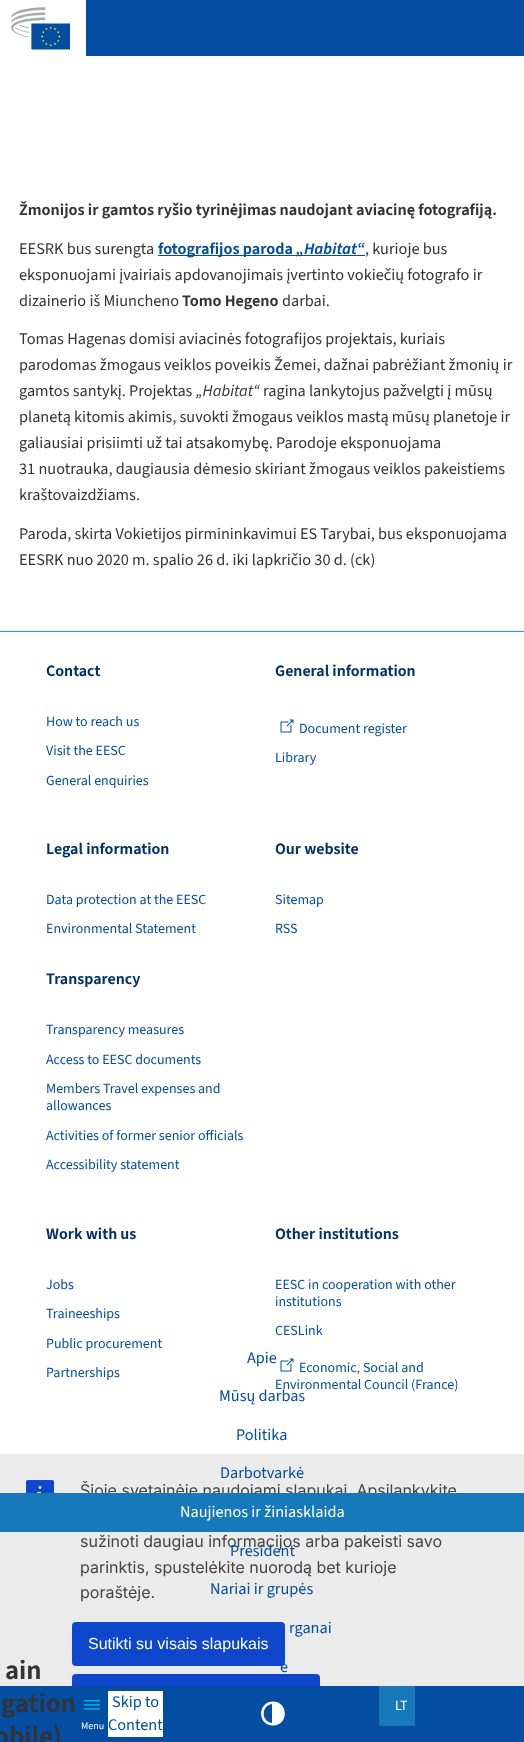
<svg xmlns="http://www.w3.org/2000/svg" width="524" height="1742">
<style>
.a{font:600 16.25px 'Source Sans 3';fill:#333}
.b{font:16.25px 'Source Sans 3';fill:#333}
.c{font:600 16.25px 'Source Sans 3';fill:#034ea2}
.d{font:italic 600 16.25px 'Source Sans 3';fill:#034ea2}
.e{font:italic 16.25px 'Source Sans 3';fill:#333}
.f{font:600 16px 'Source Sans 3';fill:#023267}
.g{font:14px 'Source Sans 3';fill:#034ea2}
.h{font:600 27px 'Source Sans 3';fill:#333}
.i{font:16.25px 'Source Sans 3';fill:#034ea2}
.j{font:10px 'Source Sans 3';fill:#fff}
.k{font:14px 'Source Sans 3';fill:#fff}
.l{font:16px Inter;fill:#444}
.m{font:16.25px 'Source Sans 3';fill:#fff}
.n{font:16px Liberation Sans;fill:#fff}
</style>
<rect width="100%" height="100%" fill="#fff"/>
<image href="1.png" x="11" y="7" width="59" height="43"/>
<path fill="#034ea2" d="M86 0h438v56H86z"/>
<path fill="#034ea2" d="M158 255h207v1H158z"/>
<path fill="#00aadb" d="M0 631h524v1H0z"/>
<image href="2.png" x="280" y="719" width="14" height="14"/>
<image href="2.png" x="280" y="1358" width="14" height="14"/>
<path fill="#ebebeb" d="M0 1454h524v232H0z"/>
<rect fill="#0e47cb" x="72" y="1674" width="248" height="44" rx="4"/>
<path fill="#034ea2" d="M0 1686h524v56H0z"/>
<image href="3.png" x="84" y="1700" width="17" height="10"/>
<path fill="#fff" d="M108 1691h55v46H108z"/>
<path fill="#1779ba" d="M379 1686h36v40H379z"/>
<path fill="#fff" d="M273 1701.5c-15.5 0-16 24 0 24c16 0 15.5-24 0-24zm-1 21.5c-11-1.5-11-17.5 0-19z"/>
<image href="4.png" x="26" y="1480" width="28" height="13"/>
<rect fill="#0e47cb" x="72" y="1622" width="213" height="44" rx="4"/>
<text class="a" x="19" y="215">Žmonijos ir gamtos ryšio tyrinėjimas naudojant aviacinę fotografiją.</text>
<text class="b" x="19" y="254">EESRK bus surengta</text>
<text class="c" x="158" y="254">fotografijos paroda</text>
<text class="d" x="296" y="254">„Habitat“</text>
<text class="b" x="365" y="254">, kurioje bus</text>
<text class="b" x="19" y="280">eksponuojami įvairiais apdovanojimais įvertinto vokiečių fotografo ir</text>
<text class="b" x="19" y="306">dizainerio iš Miuncheno</text>
<text class="a" x="182" y="306">Tomo Hegeno</text>
<text class="b" x="282" y="306">darbai.</text>
<text class="b" x="19" y="344">Tomas Hagenas domisi aviacinės fotografijos projektais, kuriais</text>
<text class="b" x="19" y="370">parodomas žmogaus veiklos poveikis Žemei, dažnai pabrėžiant žmonių ir</text>
<text class="b" x="19" y="396">gamtos santykį. Projektas</text>
<text class="e" x="196" y="396">„Habitat“</text>
<text class="b" x="263" y="396">ragina lankytojus pažvelgti į mūsų</text>
<text class="b" x="19" y="422">planetą kitomis akimis, suvokti žmogaus veiklos mastą mūsų planetoje ir</text>
<text class="b" x="19" y="448">galiausiai prisiimti už tai atsakomybę. Parodoje eksponuojama</text>
<text class="b" x="19" y="474">31 nuotrauka, daugiausia dėmesio skiriant žmogaus veiklos pakeistiems</text>
<text class="b" x="19" y="500">kraštovaizdžiams.</text>
<text class="b" x="19" y="539">Paroda, skirta Vokietijos pirmininkavimui ES Tarybai, bus eksponuojama</text>
<text class="b" x="19" y="565">EESRK nuo 2020 m. spalio 26 d. iki lapkričio 30 d. (ck)</text>
<text class="f" x="46" y="676">Contact</text>
<text class="g" x="46" y="726">How to reach us</text>
<text class="g" x="46" y="755">Visit the EESC</text>
<text class="g" x="46" y="785">General enquiries</text>
<text class="f" x="275" y="676">General information</text>
<text class="g" x="299" y="733">Document register</text>
<text class="g" x="275" y="762">Library</text>
<text class="f" x="46" y="854">Legal information</text>
<text class="g" x="46" y="904">Data protection at the EESC</text>
<text class="g" x="46" y="933">Environmental Statement</text>
<text class="f" x="46" y="984">Transparency</text>
<text class="g" x="46" y="1034">Transparency measures</text>
<text class="g" x="46" y="1064">Access to EESC documents</text>
<text class="g" x="46" y="1093">Members Travel expenses and</text>
<text class="g" x="46" y="1110">allowances</text>
<text class="g" x="46" y="1140">Activities of former senior officials</text>
<text class="g" x="46" y="1169">Accessibility statement</text>
<text class="f" x="275" y="854">Our website</text>
<text class="g" x="275" y="904">Sitemap</text>
<text class="g" x="275" y="933">RSS</text>
<text class="f" x="46" y="1239">Work with us</text>
<text class="g" x="46" y="1289">Jobs</text>
<text class="g" x="46" y="1318">Traineeships</text>
<text class="g" x="46" y="1348">Public procurement</text>
<text class="g" x="46" y="1377">Partnerships</text>
<text class="f" x="275" y="1239">Other institutions</text>
<text class="g" x="275" y="1289">EESC in cooperation with other</text>
<text class="g" x="275" y="1306">institutions</text>
<text class="g" x="275" y="1335">CESLink</text>
<text class="g" x="299" y="1372">Economic, Social and</text>
<text class="g" x="275" y="1389">Environmental Council (France)</text>
<text class="h" x="5" y="1679">ain</text>
<text class="h" x="1" y="1712">gation</text>
<text class="h" x="-6" y="1745">obile)</text>
<text class="i" x="247" y="1363">Apie</text>
<text class="i" x="219" y="1401">Mūsų darbas</text>
<text class="i" x="236" y="1440">Politika</text>
<text class="i" x="220" y="1478">Darbotvarkė</text>
<text class="i" x="210" y="1594">Nariai ir grupės</text>
<text class="i" x="289" y="1633">rganai</text>
<text class="i" x="280" y="1672">e</text>
<text class="j" x="81" y="1729">Menu</text>
<text class="i" x="112" y="1707">Skip to</text>
<text class="i" x="108" y="1730">Content</text>
<text class="k" x="395" y="1710">LT</text>
<text class="l" x="80" y="1496">Šioje svetainėje naudojami slapukai. Apsilankykite</text>
<path fill="#1779ba" d="M0 1493h524v39H0z"/>
<text class="m" x="180" y="1517">Naujienos ir žiniasklaida</text>
<text class="l" x="80" y="1547">sužinoti daugiau informacijos arba pakeisti savo</text>
<text class="i" x="230" y="1556">President</text>
<text class="l" x="80" y="1573">parinktis, spustelėkite nuorodą bet kurioje</text>
<text class="l" x="80" y="1598">poraštėje.</text>
<text class="n" x="88" y="1649">Sutikti su visais slapukais</text>
</svg>
